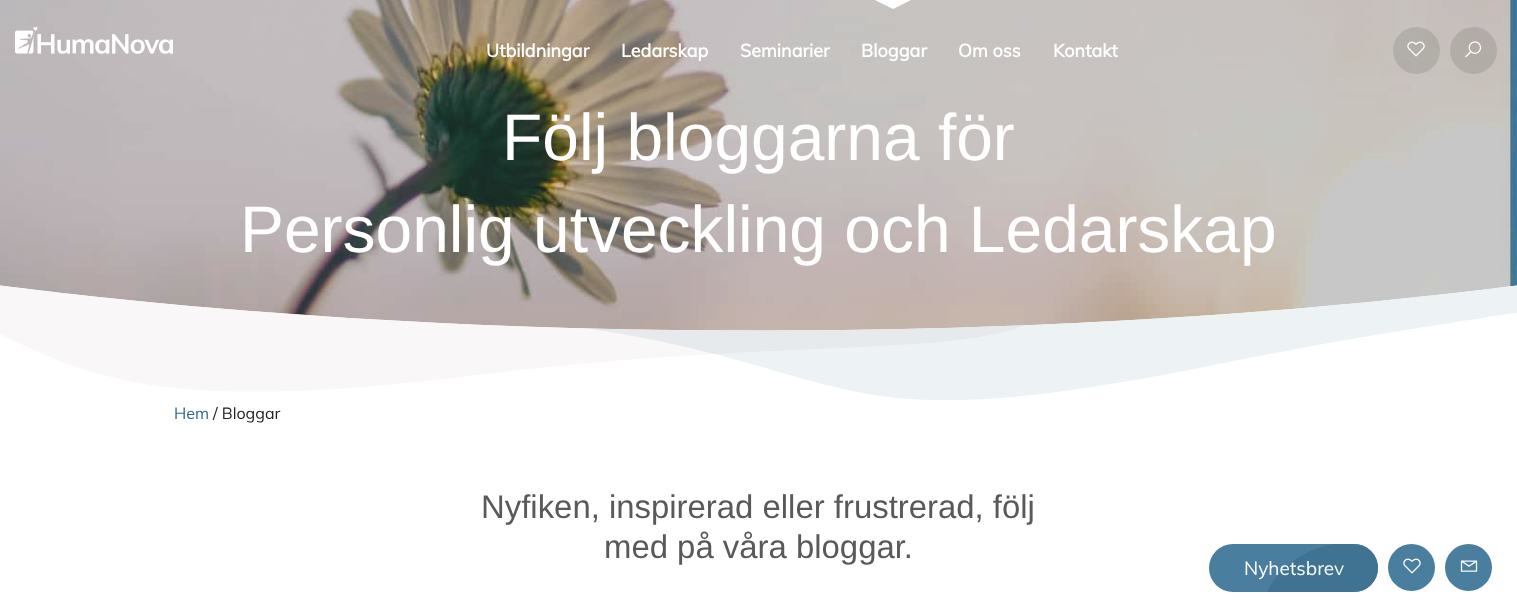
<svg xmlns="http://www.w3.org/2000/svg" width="1517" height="602">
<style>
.a{font:bold 18px Muli;fill:#fff}
.b{font:65.9px Liberation Sans;fill:#fff}
.c{font:16px Muli;fill:#369}
.d{font:16px Muli;fill:#222}
.e{font:32.9px Liberation Sans;fill:#595959}
.f{font:19px Muli;fill:#fff}
</style>
<defs>
<clipPath id="clip1"><rect x="1209" y="544" width="169" height="48" rx="24"/></clipPath>
</defs>
<rect width="100%" height="100%" fill="#fff"/>
<image href="4.png" x="0" y="0" width="1517" height="331"/>
<image href="1.png" x="15" y="27" width="158" height="27"/>
<path fill="#fff" d="M875 0h36l-18 9z"/>
<circle fill="#0000001a" cx="1416.5" cy="50.5" r="23.5"/>
<image href="2.png" x="1407" y="41" width="18" height="16"/>
<circle fill="#0000001a" cx="1473.5" cy="50.5" r="23.5"/>
<image href="3.png" x="1465" y="41" width="17" height="17"/>
<image href="5.png" x="0" y="285" width="1517" height="115"/>
<rect fill="#4a7e9f" x="1209" y="544" width="169" height="48" rx="24"/>
<circle fill="#4a7e9f" cx="1411.5" cy="567.5" r="23.5"/>
<image href="6.png" x="1403" y="558" width="18" height="16"/>
<circle fill="#4a7e9f" cx="1468.5" cy="567.5" r="23.5"/>
<g clip-path="url(#clip1)">
<rect fill="#407392" x="1261" y="542" width="187" height="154" rx="93.5"/>
</g>
<image href="7.png" x="1460" y="560" width="18" height="12"/>
<text class="a" x="486" y="57">Utbildningar</text>
<text class="a" x="621" y="57">Ledarskap</text>
<text class="a" x="740" y="57">Seminarier</text>
<text class="a" x="861" y="57">Bloggar</text>
<text class="a" x="958" y="57">Om oss</text>
<text class="a" x="1053" y="57">Kontakt</text>
<text class="b" x="502" y="160">Följ bloggarna för</text>
<text class="b" x="240" y="252">Personlig utveckling och Ledarskap</text>
<text class="c" x="174" y="419">Hem</text>
<text class="d" x="213" y="419">/ Bloggar</text>
<text class="e" x="481" y="518">Nyfiken, inspirerad eller frustrerad, följ</text>
<text class="e" x="604" y="558">med på våra bloggar.</text>
<text class="f" x="1244" y="575">Nyhetsbrev</text>
</svg>
